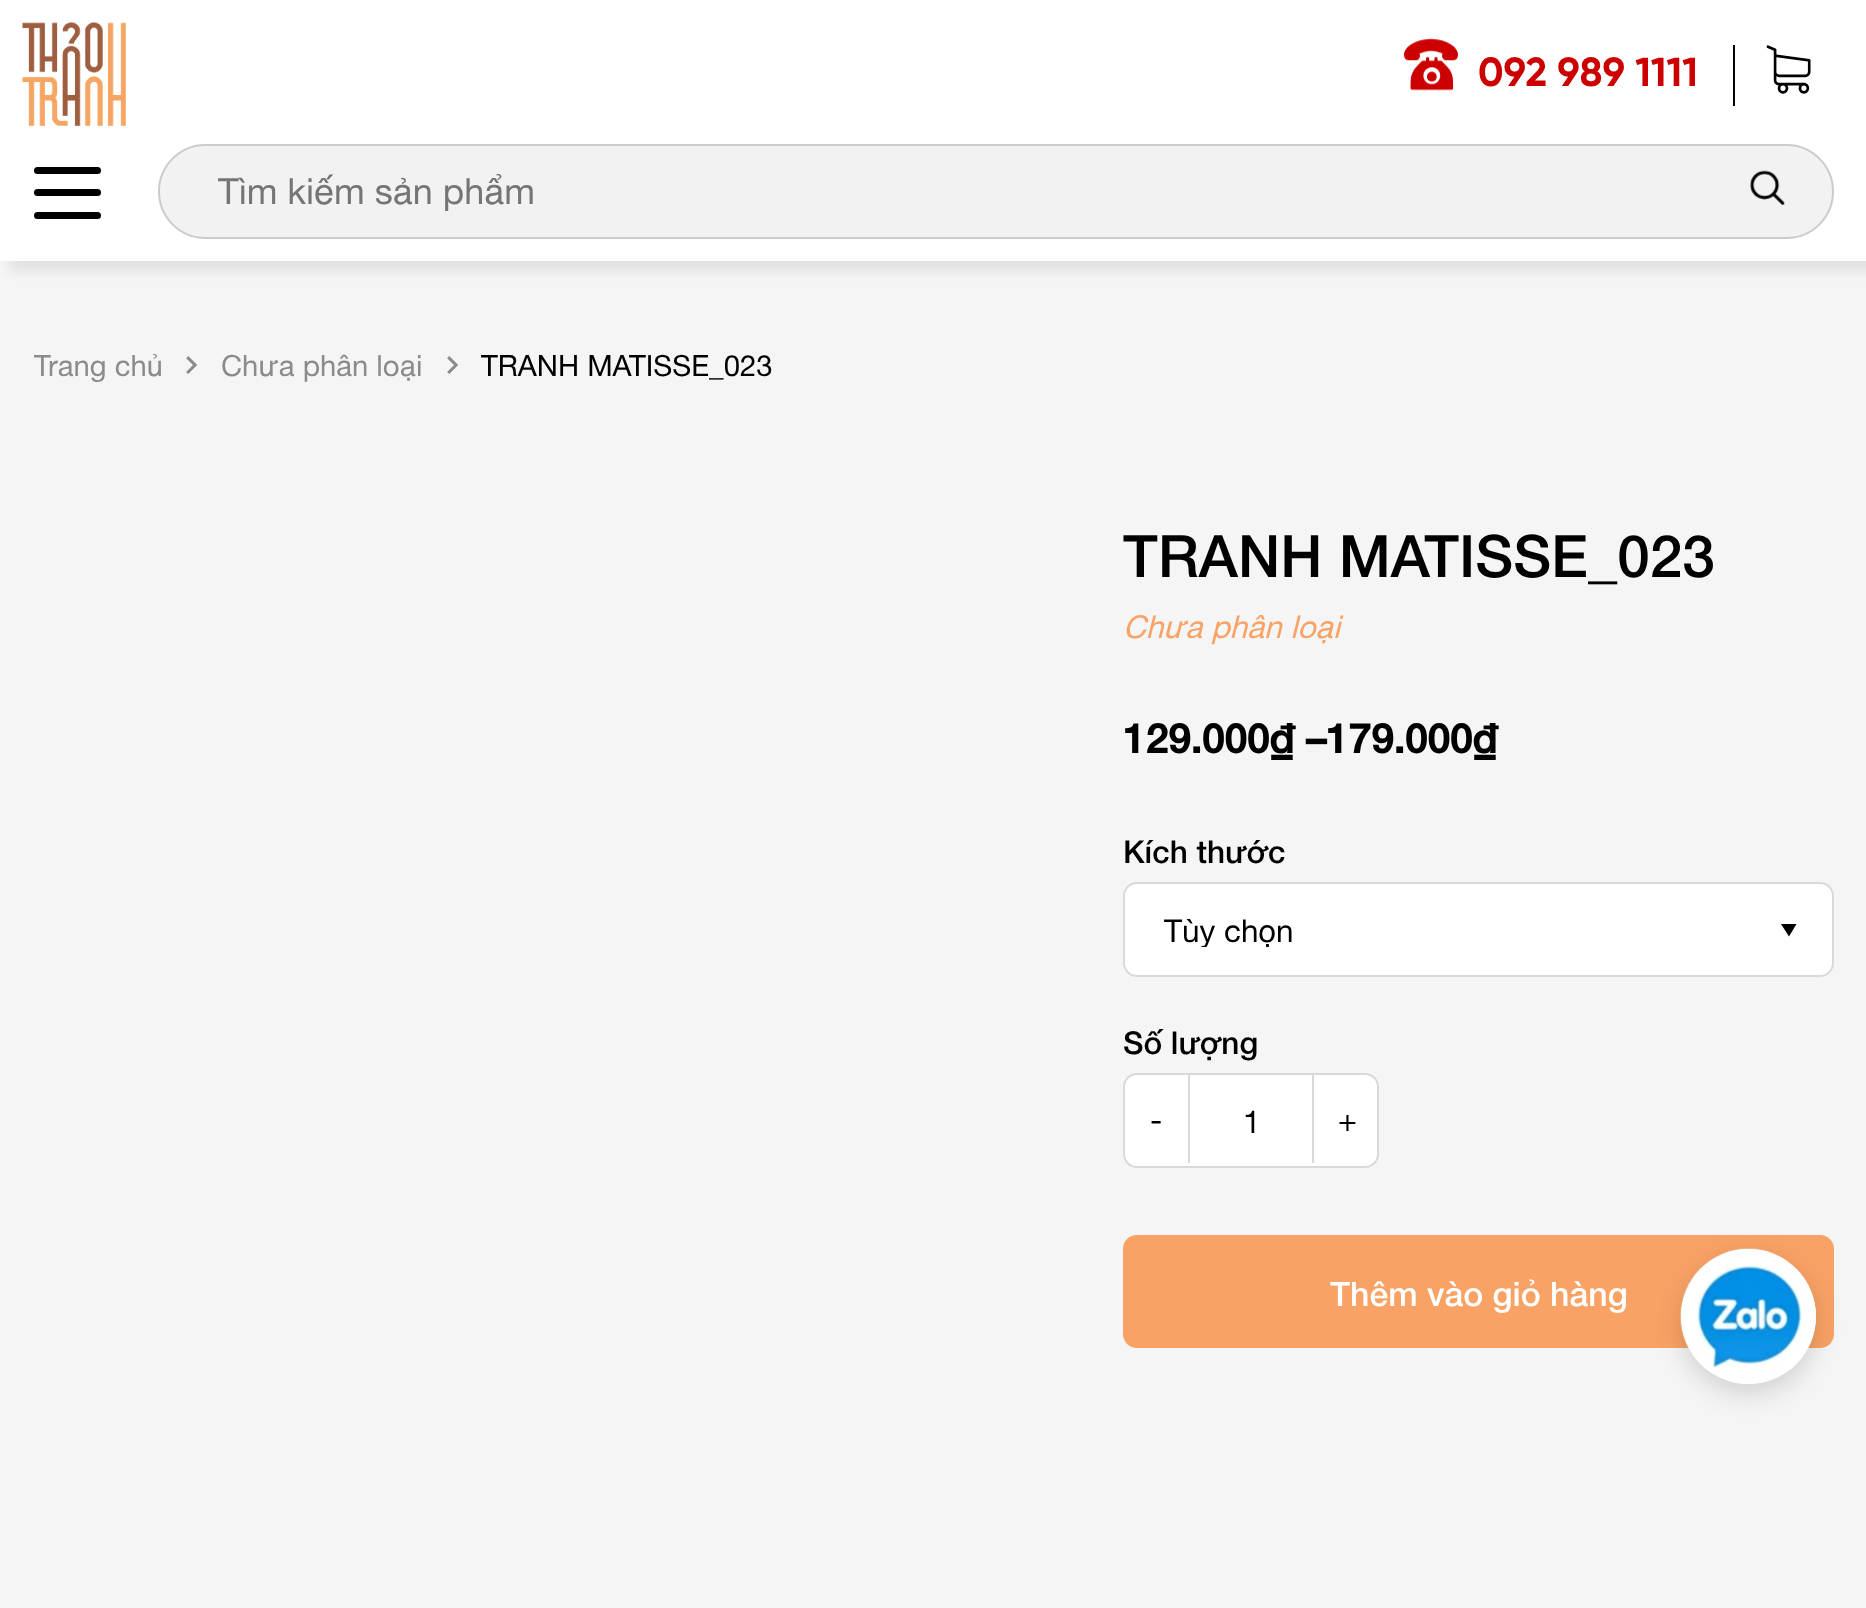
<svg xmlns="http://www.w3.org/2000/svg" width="1866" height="1608">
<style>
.a{font:bold 40.5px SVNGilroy;fill:#cd0000}
.b{font:36px Helvetica Neue;fill:#757575}
.c{font:29.25px Helvetica Neue;fill:#8b8b8b}
.d{font:29.25px Helvetica Neue;fill:#000}
.e{font:500 58.5px Helvetica Neue;fill:#000}
.f{font:italic 31.5px Helvetica Neue;fill:#f9a266}
.g{font:bold 40.5px Helvetica Neue;fill:#000}
.h{font:500 31.5px Helvetica Neue;fill:#000}
.i{font:31.5px Helvetica Neue;fill:#000}
.j{font:500 33.75px Helvetica Neue;fill:#fff}
</style>
<defs>
<clipPath id="clip1"><path d="M1163 911h630v36H1163z"/></clipPath>
</defs>
<rect width="100%" height="100%" fill="#f5f5f5"/>
<path fill="#4444441a" filter="blur(5.5px)" d="M9 11h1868v261H9z"/>
<path fill="#fff" d="M0 0h1866v261H0z"/>
<image href="1.png" x="22" y="22" width="104" height="104"/>
<image href="2.png" x="1404" y="38" width="54" height="53"/>
<path fill="#000" d="M1733 45h2v61H1733z"/>
<image href="3.png" x="1766" y="45" width="45" height="49"/>
<rect fill="#000" x="34" y="167" width="67" height="7" rx="3.5"/>
<rect fill="#000" x="34" y="189" width="67" height="7" rx="3.5"/>
<rect fill="#000" x="34" y="212" width="67" height="7" rx="3.5"/>
<rect fill="#f2f2f2" stroke="#cbcbcb" stroke-width="2" x="159" y="145" width="1674" height="93" rx="46.5"/>
<image href="4.png" x="1750" y="170" width="35" height="35"/>
<image href="5.png" x="186" y="356" width="11" height="18"/>
<image href="5.png" x="447" y="356" width="11" height="18"/>
<rect fill="#fff" x="1123" y="882" width="711" height="95" rx="14"/>
<path fill="#000" d="M1796.5 924h-15.5l8 12.5z"/>
<rect fill="none" stroke="#d9d9d9" stroke-width="2" x="1124" y="883" width="709" height="93" rx="13"/>
<rect fill="#fff" stroke="#d9d9d9" stroke-width="2" x="1124" y="1074" width="254" height="93" rx="13"/>
<path fill="#d9d9d9" d="M1188 1073h2v90H1188z"/>
<path fill="#d9d9d9" d="M1312 1073h2v90H1312z"/>
<rect fill="#f9a266" x="1123" y="1235" width="711" height="113" rx="14"/>
<rect fill="#00000026" filter="blur(13.5px)" x="1681" y="1258" width="135" height="135" rx="67.5"/>
<circle fill="#fff" cx="1748.5" cy="1316.5" r="67.5"/>
<image href="6.png" x="1680" y="1248" width="136" height="136"/>
<text class="a" x="1478" y="86">092 989 1111</text>
<text class="b" x="218" y="204">Tìm kiếm sản phẩm</text>
<text class="c" x="34" y="376">Trang chủ</text>
<text class="c" x="221" y="376">Chưa phân loại</text>
<text class="d" x="481" y="376">TRANH MATISSE_023</text>
<text class="e" x="1123" y="577">TRANH MATISSE_023</text>
<text class="f" x="1123" y="638">Chưa phân loại</text>
<text class="g" x="1123" y="753">129.000₫ –179.000₫</text>
<text class="h" x="1123" y="863">Kích thước</text>
<g clip-path="url(#clip1)">
<text class="i" x="1164" y="942">Tùy chọn</text>
</g>
<text class="h" x="1123" y="1054">Số lượng</text>
<text class="i" x="1150" y="1131">-</text>
<text class="i" x="1243" y="1133">1</text>
<text class="i" x="1338" y="1131">+</text>
<text class="j" x="1330" y="1306">Thêm vào giỏ hàng</text>
</svg>
